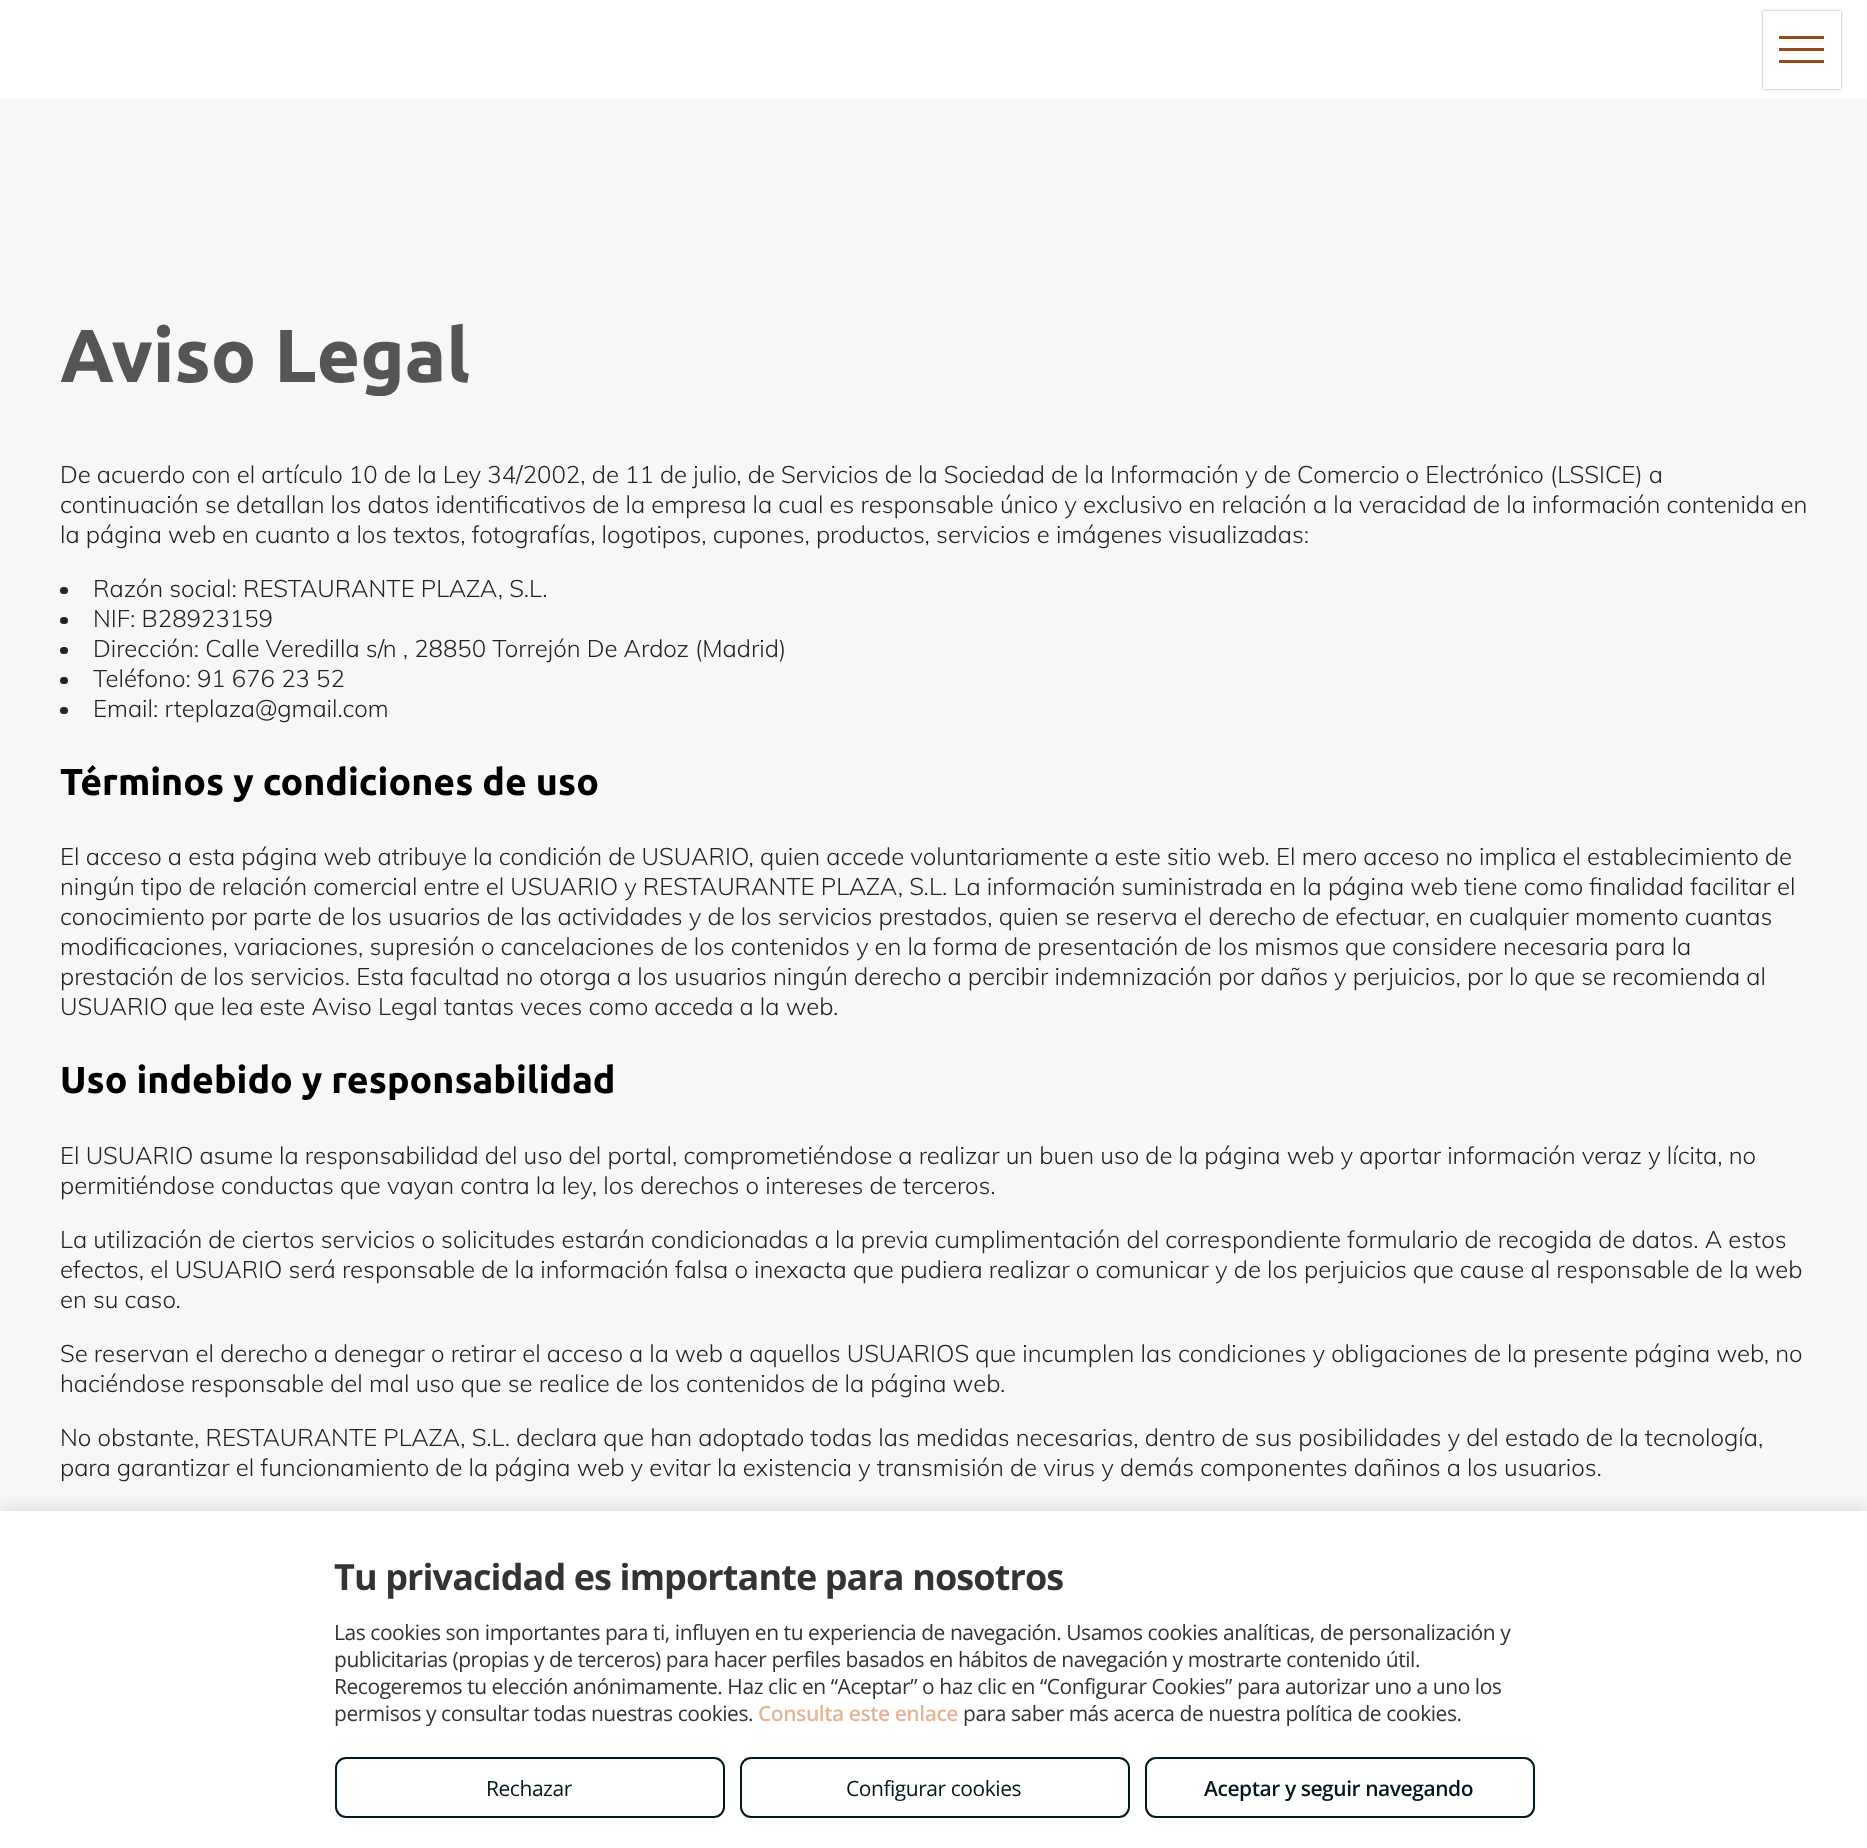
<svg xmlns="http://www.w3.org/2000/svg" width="1867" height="1848">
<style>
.a{font:bold 75px Ubuntu;fill:#555}
.b{font:300 24px Muli;fill:#232323}
.c{font:bold 37.5px Ubuntu;fill:#000}
.d{font:bold 36px Open Sans;letter-spacing:-0.9px;fill:#333}
.e{font:21px Open Sans;letter-spacing:-0.45px;fill:#333}
.f{font:600 21px Open Sans;letter-spacing:-0.45px;fill:#e3b697}
.g{font:21px Open Sans;letter-spacing:-0.45px;fill:#03181e}
.h{font:600 21px Open Sans;letter-spacing:-0.45px;fill:#03181e}
</style>
<rect width="100%" height="100%" fill="#fff"/>
<path fill="#00000059" filter="blur(1.5px)" d="M1763 11h78v78H1763z"/>
<path fill="#fff" d="M1763 11h78v78H1763z"/>
<path fill="#884d25" d="M1779 36h45v3H1779z"/>
<path fill="#884d25" d="M1779 48h45v3H1779z"/>
<path fill="#884d25" d="M1779 60h45v3H1779z"/>
<path fill="#f7f7f7" d="M0 99h1867v1412H0z"/>
<rect fill="#232323" x="60" y="587" width="8" height="7" rx="3.5"/>
<rect fill="#232323" x="60" y="617" width="8" height="7" rx="3.5"/>
<rect fill="#232323" x="60" y="647" width="8" height="7" rx="3.5"/>
<rect fill="#232323" x="60" y="677" width="8" height="7" rx="3.5"/>
<rect fill="#232323" x="60" y="707" width="8" height="7" rx="3.5"/>
<path fill="#0000001a" filter="blur(7.5px)" d="M0 1508h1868v337H0z"/>
<path fill="#fff" d="M0 1511h1867v337H0z"/>
<rect fill="none" stroke="#03181e" stroke-width="2" x="336" y="1758" width="388" height="59" rx="10"/>
<rect fill="none" stroke="#03181e" stroke-width="2" x="741" y="1758" width="388" height="59" rx="10"/>
<rect fill="none" stroke="#03181e" stroke-width="2" x="1146" y="1758" width="388" height="59" rx="10"/>
<text class="a" x="60" y="382">Aviso Legal</text>
<text class="b" x="60" y="483">De acuerdo con el artículo 10 de la Ley 34/2002, de 11 de julio, de Servicios de la Sociedad de la Información y de Comercio o Electrónico (LSSICE) a</text>
<text class="b" x="60" y="513">continuación se detallan los datos identificativos de la empresa la cual es responsable único y exclusivo en relación a la veracidad de la información contenida en</text>
<text class="b" x="60" y="543">la página web en cuanto a los textos, fotografías, logotipos, cupones, productos, servicios e imágenes visualizadas:</text>
<text class="b" x="93" y="597">Razón social: RESTAURANTE PLAZA, S.L.</text>
<text class="b" x="93" y="627">NIF: B28923159</text>
<text class="b" x="93" y="657">Dirección: Calle Veredilla s/n , 28850 Torrejón De Ardoz (Madrid)</text>
<text class="b" x="93" y="687">Teléfono: 91 676 23 52</text>
<text class="b" x="93" y="717">Email: rteplaza@gmail.com</text>
<text class="c" x="60" y="795">Términos y condiciones de uso</text>
<text class="b" x="60" y="865">El acceso a esta página web atribuye la condición de USUARIO, quien accede voluntariamente a este sitio web. El mero acceso no implica el establecimiento de</text>
<text class="b" x="60" y="895">ningún tipo de relación comercial entre el USUARIO y RESTAURANTE PLAZA, S.L. La información suministrada en la página web tiene como finalidad facilitar el</text>
<text class="b" x="60" y="925">conocimiento por parte de los usuarios de las actividades y de los servicios prestados, quien se reserva el derecho de efectuar, en cualquier momento cuantas</text>
<text class="b" x="60" y="955">modificaciones, variaciones, supresión o cancelaciones de los contenidos y en la forma de presentación de los mismos que considere necesaria para la</text>
<text class="b" x="60" y="985">prestación de los servicios. Esta facultad no otorga a los usuarios ningún derecho a percibir indemnización por daños y perjuicios, por lo que se recomienda al</text>
<text class="b" x="60" y="1015">USUARIO que lea este Aviso Legal tantas veces como acceda a la web.</text>
<text class="c" x="60" y="1093">Uso indebido y responsabilidad</text>
<text class="b" x="60" y="1164">El USUARIO asume la responsabilidad del uso del portal, comprometiéndose a realizar un buen uso de la página web y aportar información veraz y lícita, no</text>
<text class="b" x="60" y="1194">permitiéndose conductas que vayan contra la ley, los derechos o intereses de terceros.</text>
<text class="b" x="60" y="1248">La utilización de ciertos servicios o solicitudes estarán condicionadas a la previa cumplimentación del correspondiente formulario de recogida de datos. A estos</text>
<text class="b" x="60" y="1278">efectos, el USUARIO será responsable de la información falsa o inexacta que pudiera realizar o comunicar y de los perjuicios que cause al responsable de la web</text>
<text class="b" x="60" y="1308">en su caso.</text>
<text class="b" x="60" y="1362">Se reservan el derecho a denegar o retirar el acceso a la web a aquellos USUARIOS que incumplen las condiciones y obligaciones de la presente página web, no</text>
<text class="b" x="60" y="1392">haciéndose responsable del mal uso que se realice de los contenidos de la página web.</text>
<text class="b" x="60" y="1446">No obstante, RESTAURANTE PLAZA, S.L. declara que han adoptado todas las medidas necesarias, dentro de sus posibilidades y del estado de la tecnología,</text>
<text class="b" x="60" y="1476">para garantizar el funcionamiento de la página web y evitar la existencia y transmisión de virus y demás componentes dañinos a los usuarios.</text>
<text class="d" x="334" y="1590">Tu privacidad es importante para nosotros</text>
<text class="e" x="334" y="1640">Las cookies son importantes para ti, influyen en tu experiencia de navegación. Usamos cookies analíticas, de personalización y</text>
<text class="e" x="334" y="1667">publicitarias (propias y de terceros) para hacer perfiles basados en hábitos de navegación y mostrarte contenido útil.</text>
<text class="e" x="334" y="1694">Recogeremos tu elección anónimamente. Haz clic en “Aceptar” o haz clic en “Configurar Cookies” para autorizar uno a uno los</text>
<text class="e" x="334" y="1721">permisos y consultar todas nuestras cookies.</text>
<text class="f" x="758" y="1721">Consulta este enlace</text>
<text class="e" x="963" y="1721">para saber más acerca de nuestra política de cookies.</text>
<text class="g" x="486" y="1796">Rechazar</text>
<text class="g" x="846" y="1796">Configurar cookies</text>
<text class="h" x="1204" y="1796">Aceptar y seguir navegando</text>
</svg>
